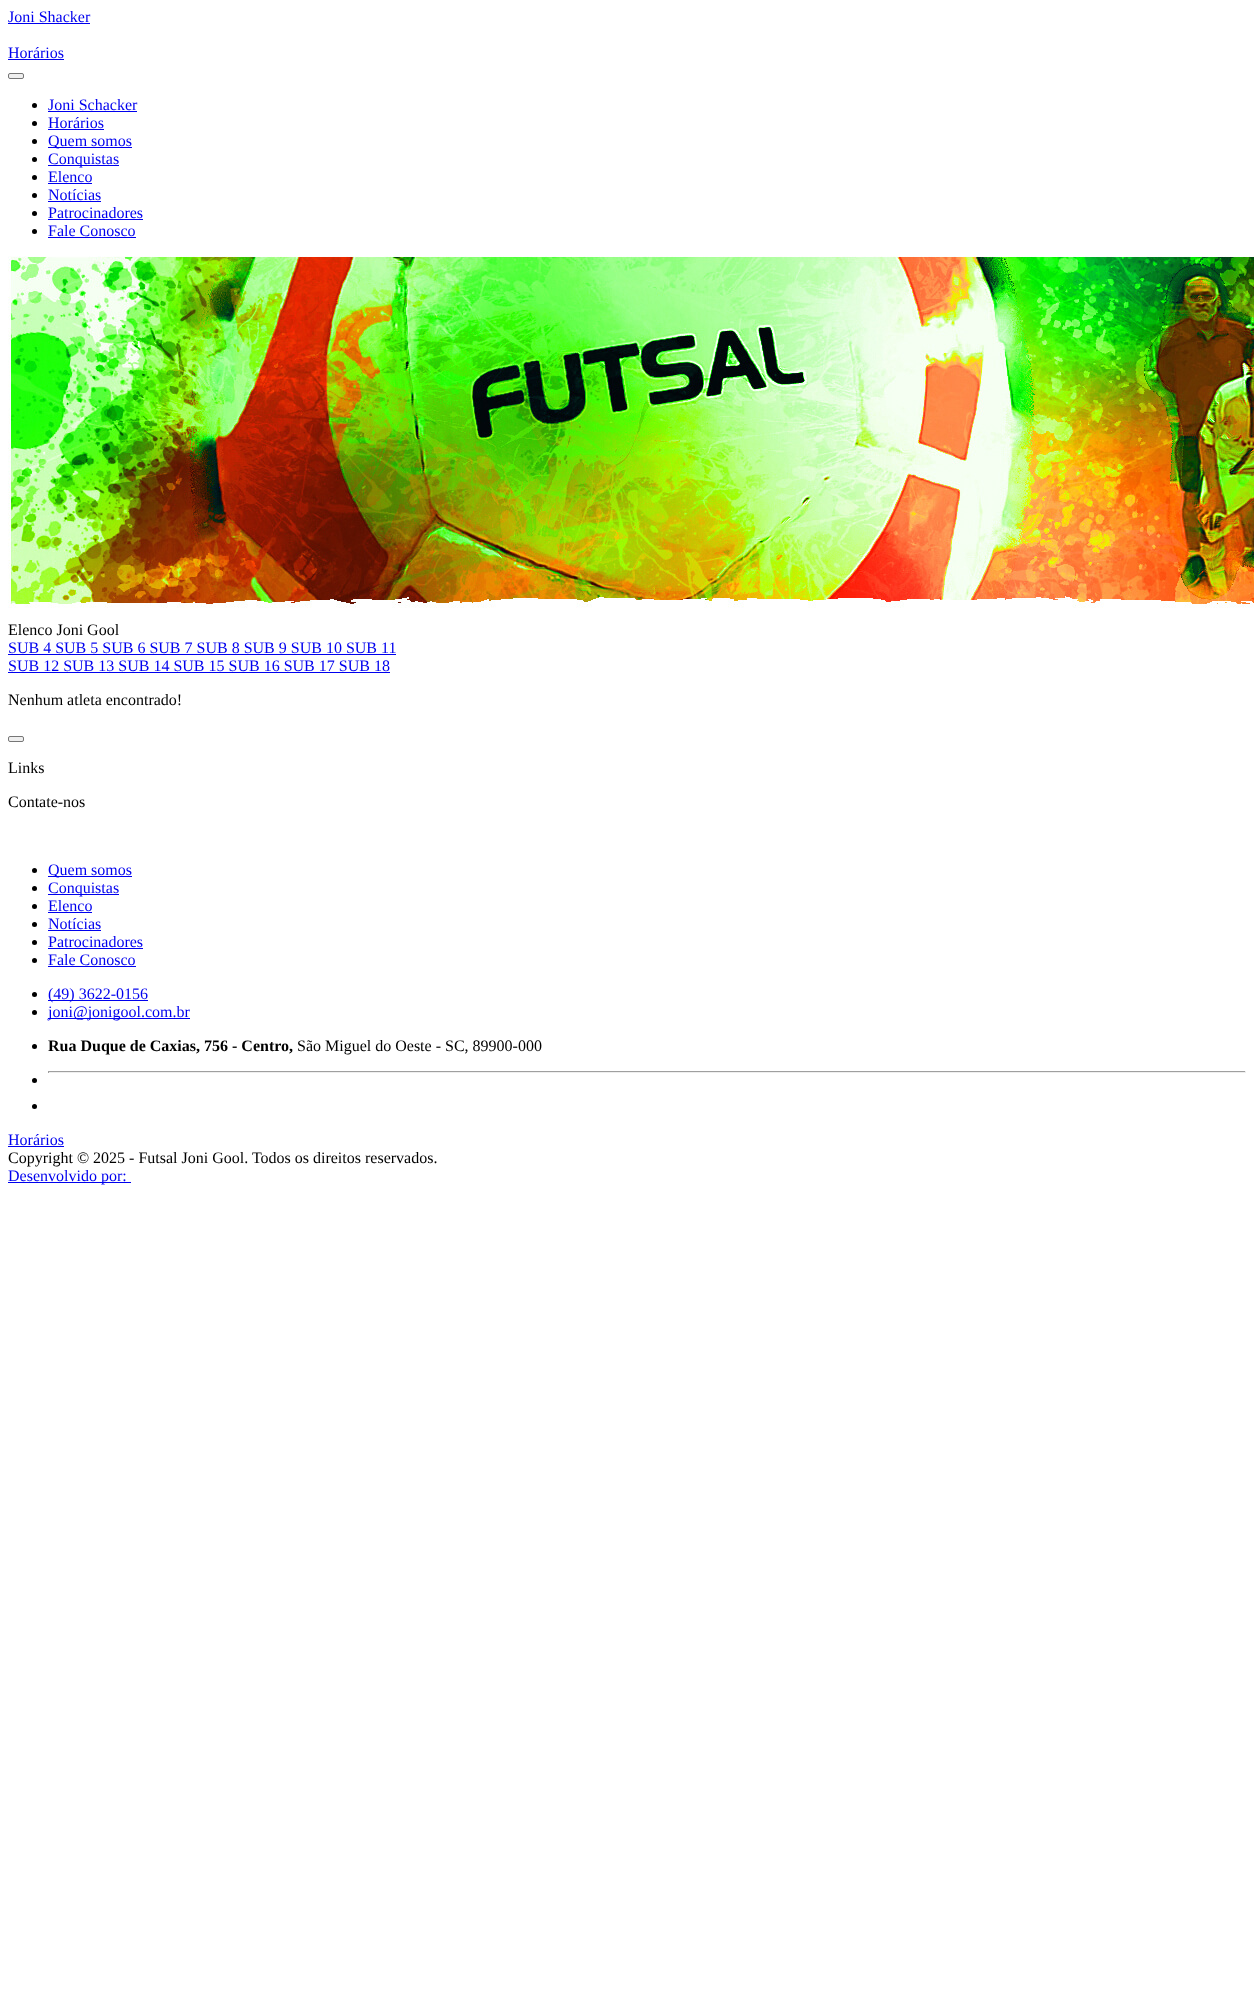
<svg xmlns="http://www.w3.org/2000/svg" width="1254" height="1991">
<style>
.a{font:16px Liberation Serif;fill:#00e}
.b{font:16px Liberation Serif;fill:#000}
.c{font:bold 16px Liberation Serif;fill:#000}
</style>
<rect width="100%" height="100%" fill="#fff"/>
<path fill="#00e" d="M8 23h82v1H8z"/>
<path fill="#00e" d="M8 59h56v1H8z"/>
<rect fill="#efefef" stroke="#767676" x="8.5" y="73.5" width="15" height="5" rx="1.5"/>
<circle fill="#000" cx="34.5" cy="105.5" r="2.5"/>
<path fill="#00e" d="M48 111h89v1H48z"/>
<circle fill="#000" cx="34.5" cy="123.5" r="2.5"/>
<path fill="#00e" d="M48 129h56v1H48z"/>
<circle fill="#000" cx="34.5" cy="141.5" r="2.5"/>
<path fill="#00e" d="M48 147h84v1H48z"/>
<circle fill="#000" cx="34.5" cy="159.5" r="2.5"/>
<path fill="#00e" d="M48 165h71v1H48z"/>
<circle fill="#000" cx="34.5" cy="177.5" r="2.5"/>
<path fill="#00e" d="M48 183h44v1H48z"/>
<circle fill="#000" cx="34.5" cy="195.5" r="2.5"/>
<path fill="#00e" d="M48 201h53v1H48z"/>
<circle fill="#000" cx="34.5" cy="213.5" r="2.5"/>
<path fill="#00e" d="M48 219h95v1H48z"/>
<circle fill="#000" cx="34.5" cy="231.5" r="2.5"/>
<path fill="#00e" d="M48 237h88v1H48z"/>
<image href="1.png" x="8" y="256" width="1246" height="352"/>
<path fill="#00e" d="M8 654h388v1H8z"/>
<path fill="#00e" d="M8 672h382v1H8z"/>
<rect fill="#efefef" stroke="#767676" x="8.5" y="736.5" width="15" height="5" rx="1.5"/>
<circle fill="#000" cx="34.5" cy="870.5" r="2.5"/>
<path fill="#00e" d="M48 876h84v1H48z"/>
<circle fill="#000" cx="34.5" cy="888.5" r="2.5"/>
<path fill="#00e" d="M48 894h71v1H48z"/>
<circle fill="#000" cx="34.5" cy="906.5" r="2.5"/>
<path fill="#00e" d="M48 912h44v1H48z"/>
<circle fill="#000" cx="34.5" cy="924.5" r="2.5"/>
<path fill="#00e" d="M48 930h53v1H48z"/>
<circle fill="#000" cx="34.5" cy="942.5" r="2.5"/>
<path fill="#00e" d="M48 948h95v1H48z"/>
<circle fill="#000" cx="34.5" cy="960.5" r="2.5"/>
<path fill="#00e" d="M48 966h88v1H48z"/>
<circle fill="#000" cx="34.5" cy="994.5" r="2.5"/>
<path fill="#00e" d="M48 1000h100v1H48z"/>
<circle fill="#000" cx="34.5" cy="1012.5" r="2.5"/>
<path fill="#00e" d="M48 1018h142v1H48z"/>
<circle fill="#000" cx="34.5" cy="1046.5" r="2.5"/>
<path fill="#9f9f9f" d="M48 1071h1198v1H48z"/>
<path fill="#eee" d="M1245 1071h1v2H1245z"/>
<path fill="#eee" d="M48 1072h1198v1H48z"/>
<path fill="#9f9f9f" d="M48 1071h1v2H48z"/>
<circle fill="#000" cx="34.5" cy="1080.5" r="2.5"/>
<circle fill="#000" cx="34.5" cy="1106.5" r="2.5"/>
<path fill="#00e" d="M8 1146h56v1H8z"/>
<path fill="#00e" d="M8 1182h123v1H8z"/>
<text class="a" x="8" y="22">Joni Shacker</text>
<text class="a" x="8" y="58">Horários</text>
<text class="a" x="48" y="110">Joni Schacker</text>
<text class="a" x="48" y="128">Horários</text>
<text class="a" x="48" y="146">Quem somos</text>
<text class="a" x="48" y="164">Conquistas</text>
<text class="a" x="48" y="182">Elenco</text>
<text class="a" x="48" y="200">Notícias</text>
<text class="a" x="48" y="218">Patrocinadores</text>
<text class="a" x="48" y="236">Fale Conosco</text>
<text class="b" x="8" y="635">Elenco Joni Gool</text>
<text class="a" x="8" y="653">SUB 4 SUB 5 SUB 6 SUB 7 SUB 8 SUB 9 SUB 10 SUB 11</text>
<text class="a" x="8" y="671">SUB 12 SUB 13 SUB 14 SUB 15 SUB 16 SUB 17 SUB 18</text>
<text class="b" x="8" y="705">Nenhum atleta encontrado!</text>
<text class="b" x="8" y="773">Links</text>
<text class="b" x="8" y="807">Contate-nos</text>
<text class="a" x="48" y="875">Quem somos</text>
<text class="a" x="48" y="893">Conquistas</text>
<text class="a" x="48" y="911">Elenco</text>
<text class="a" x="48" y="929">Notícias</text>
<text class="a" x="48" y="947">Patrocinadores</text>
<text class="a" x="48" y="965">Fale Conosco</text>
<text class="a" x="48" y="999">(49) 3622-0156</text>
<text class="a" x="48" y="1017">joni@jonigool.com.br</text>
<text class="c" x="48" y="1051">Rua Duque de Caxias, 756 - Centro,</text>
<text class="b" x="297" y="1051">São Miguel do Oeste - SC, 89900-000</text>
<text class="a" x="8" y="1145">Horários</text>
<text class="b" x="8" y="1163">Copyright © 2025 - Futsal Joni Gool. Todos os direitos reservados.</text>
<text class="a" x="8" y="1181">Desenvolvido por:</text>
</svg>
